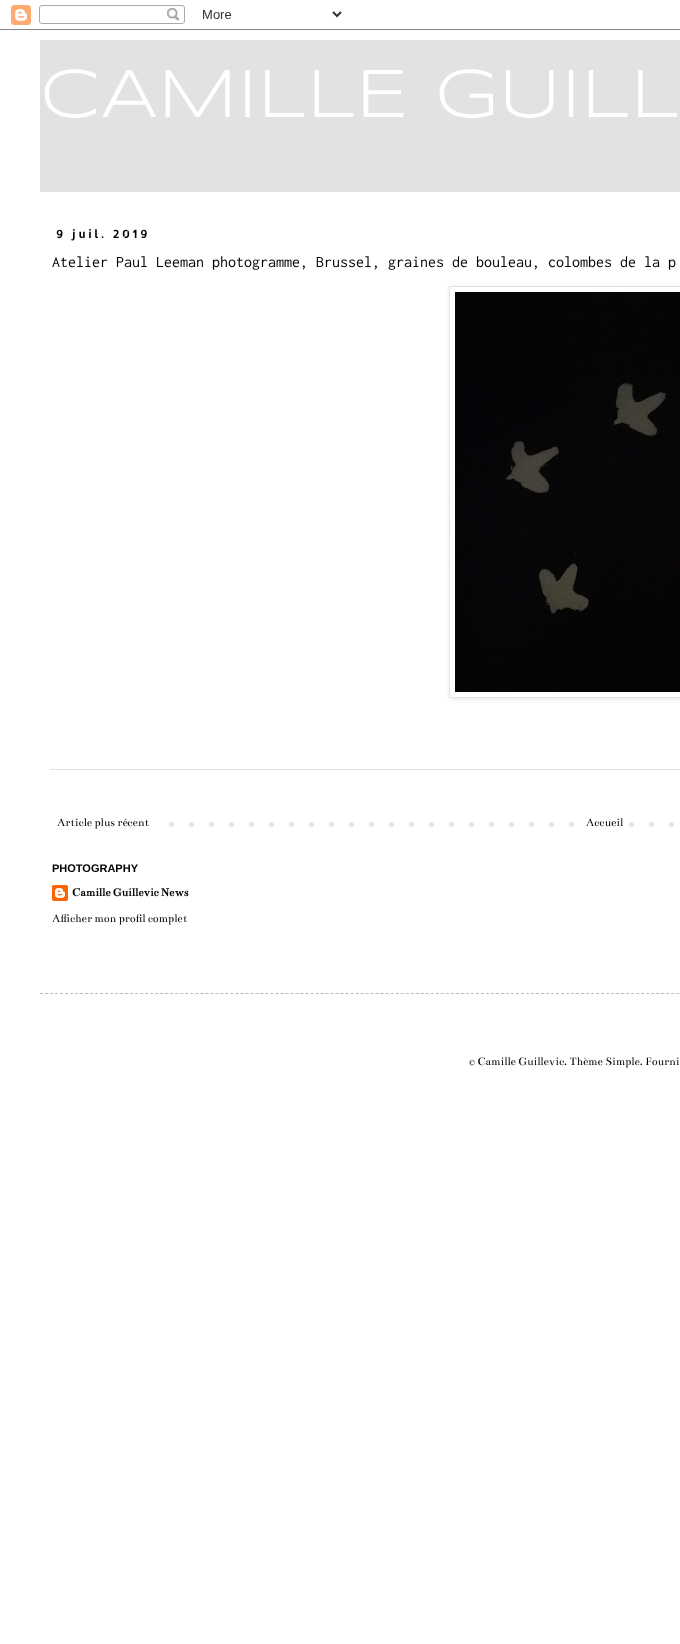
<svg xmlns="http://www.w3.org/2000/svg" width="680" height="1644">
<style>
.a{font:70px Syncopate;fill:#fff}
.b{font:bold 11px Allerta Stencil;letter-spacing:3px;fill:#000}
.c{font:16px Inconsolata;fill:#000}
.d{font:12px Bentham;fill:#000}
.e{font:bold 11px Liberation Sans;fill:#000}
.f{font:bold 12px Bentham;fill:#000}
</style>
<defs>
<clipPath id="clip1"><path d="M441 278h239v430h-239zm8 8h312v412h-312z" clip-rule="evenodd"/></clipPath>
</defs>
<rect width="100%" height="100%" fill="#fff"/>
<image href="1.png" x="0" y="5" width="680" height="25"/>
<path fill="#e2e2e2" d="M40 40h640v152H40z"/>
<g clip-path="url(#clip1)">
<path fill="#0000001a" filter="blur(2.5px)" d="M450 287h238v412H450z"/>
</g>
<path fill="none" stroke="#e2e2e2" d="M449.5 286.5h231v411H449.5z"/>
<image href="2.png" x="455" y="292" width="225" height="400"/>
<path fill="#e2e2e2" d="M50 769h630v1H50z"/>
<image href="3.png" x="169" y="822" width="505" height="5"/>
<path fill="#fff" d="M589 822h26v5H589z"/>
<image href="4.png" x="52" y="885" width="16" height="16"/>
<path fill="none" stroke="#bbb" stroke-dasharray="3 2.01" d="M40 993.5h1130"/>
<text class="a" x="40" y="117">CAMILLE GUILL</text>
<text class="b" x="56" y="238">9 juil. 2019</text>
<text class="c" x="52" y="267">Atelier Paul Leeman photogramme, Brussel, graines de bouleau, colombes de la p</text>
<text class="d" x="57" y="826">Article plus récent</text>
<text class="d" x="586" y="826">Accueil</text>
<text class="e" x="52" y="872">PHOTOGRAPHY</text>
<text class="f" x="72" y="896">Camille Guillevic News</text>
<text class="d" x="52" y="922">Afficher mon profil complet</text>
<text class="d" x="469" y="1065">© Camille Guillevic. Thème Simple. Fourni</text>
</svg>
